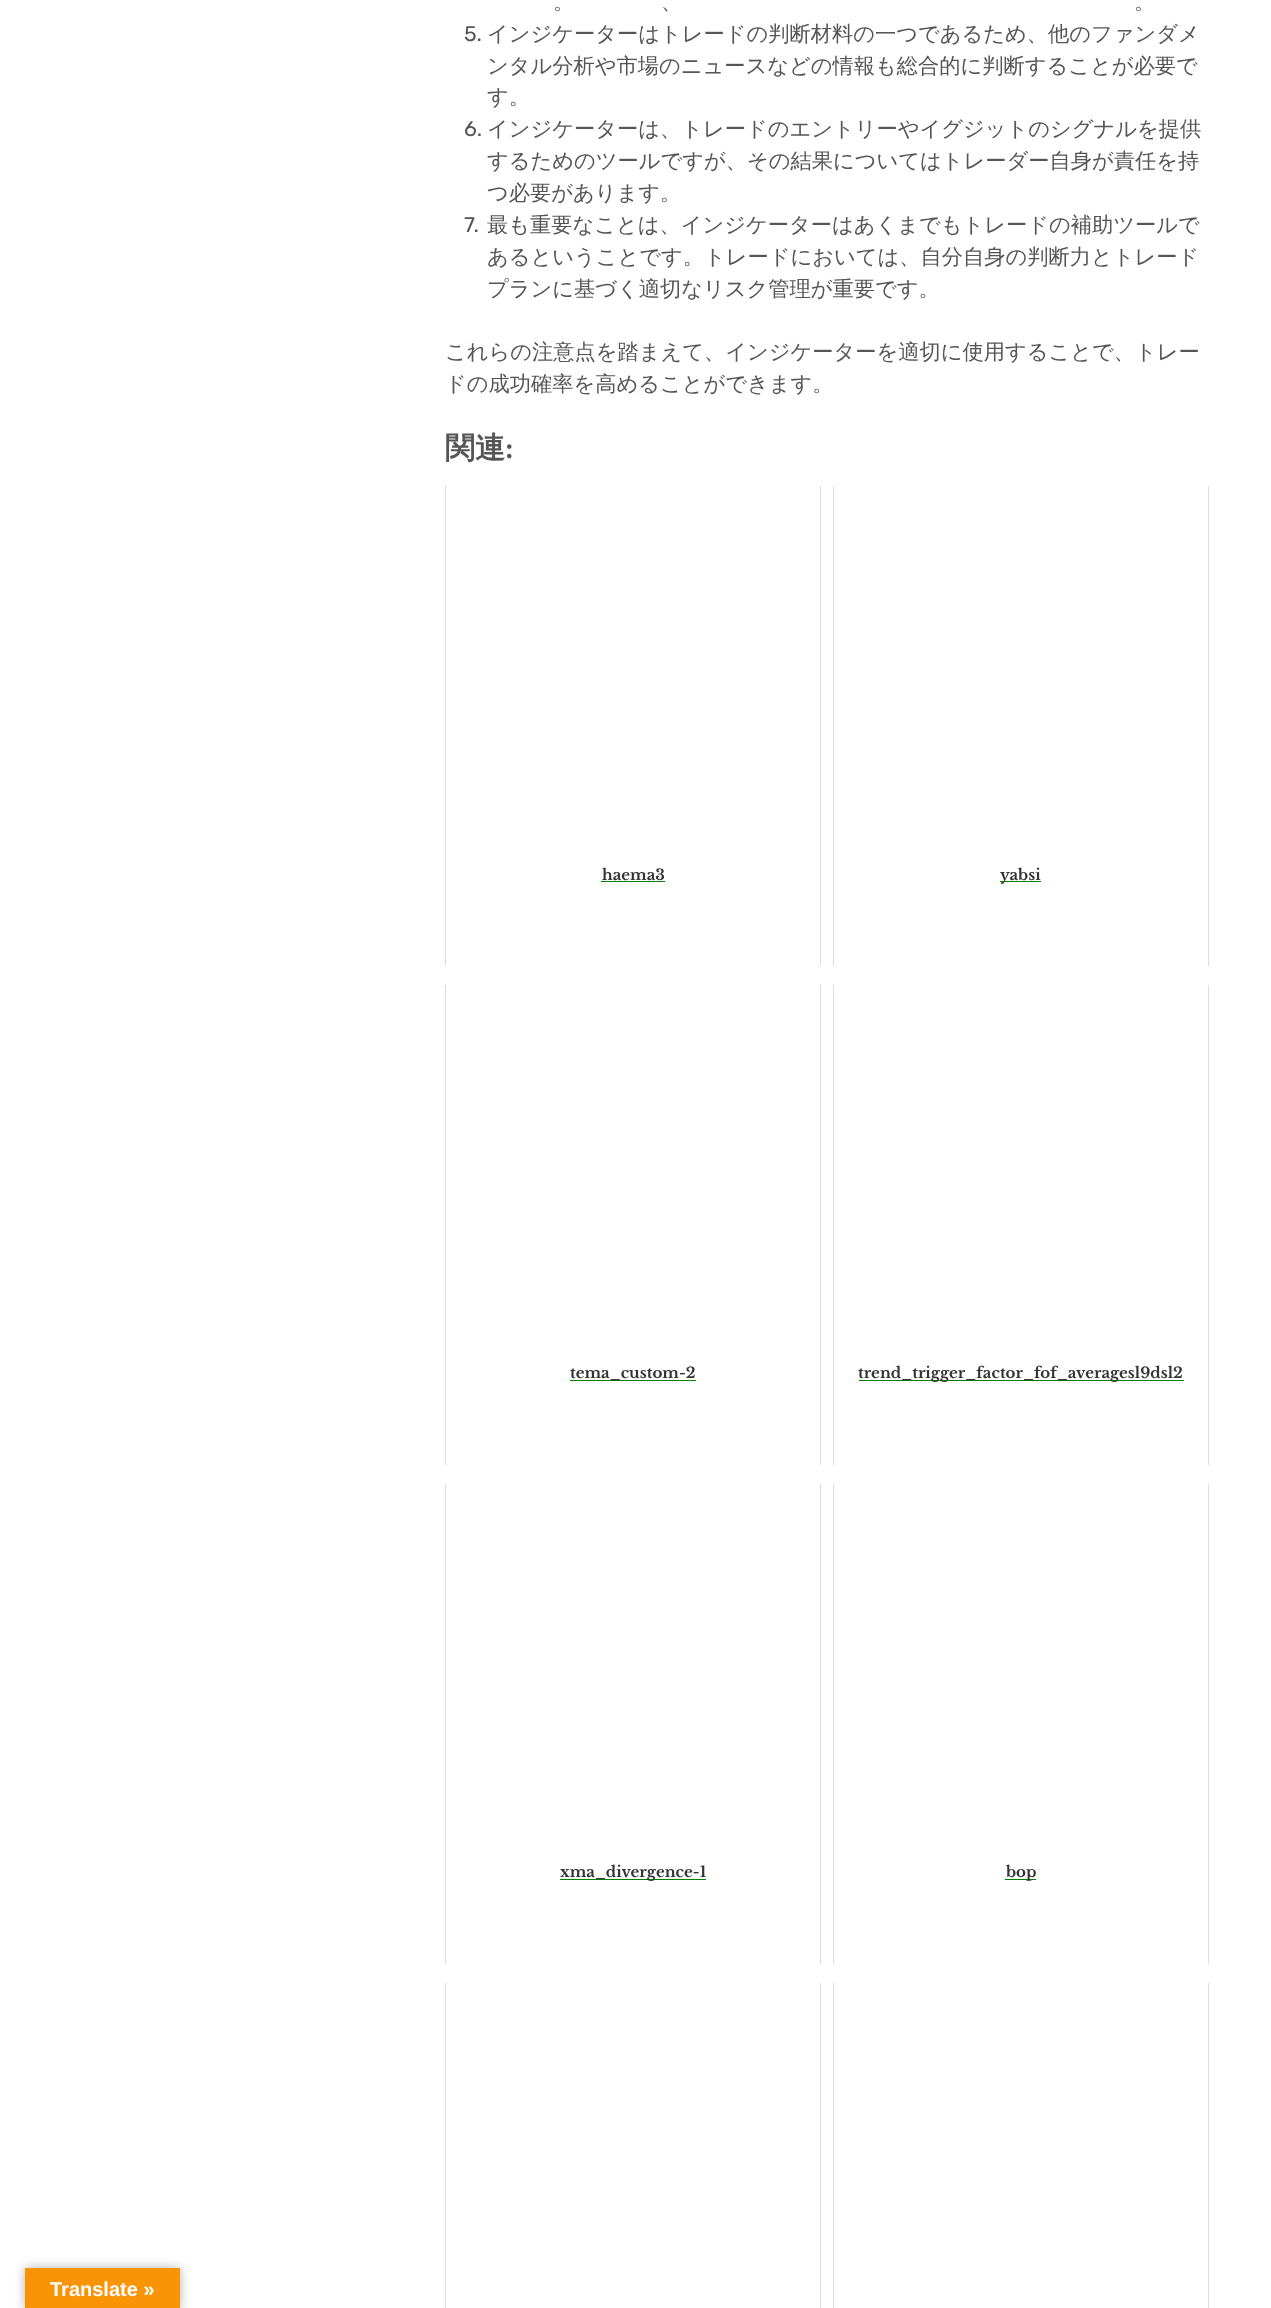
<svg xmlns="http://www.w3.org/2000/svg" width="1271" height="2308">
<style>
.a{font:500 21.25px WenQuanYi Zen Hei;fill:#555}
.b{font:21.25px Rubik;fill:#555}
.c{font:bold 30px WenQuanYi Zen Hei;fill:#555}
.d{font:bold 30px Libre Baskerville;fill:#555}
.e{font:bold 15px Libre Baskerville;fill:#333}
.f{font:bold 20px Liberation Sans;fill:#fff}
</style>
<rect width="100%" height="100%" fill="#fff"/>
<path fill="#ddd" d="M820 486h1v480H820z"/>
<path fill="#ddd" d="M445 486h1v480H445z"/>
<path fill="#008000" d="M601 881h64v1H601z"/>
<path fill="#ddd" d="M1208 486h1v480H1208z"/>
<path fill="#ddd" d="M833 486h1v480H833z"/>
<path fill="#008000" d="M1000 881h41v1H1000z"/>
<path fill="#ddd" d="M820 985h1v480H820z"/>
<path fill="#ddd" d="M445 985h1v480H445z"/>
<path fill="#008000" d="M570 1380h126v1H570z"/>
<path fill="#ddd" d="M1208 985h1v480H1208z"/>
<path fill="#ddd" d="M833 985h1v480H833z"/>
<path fill="#008000" d="M859 1380h325v1H859z"/>
<path fill="#ddd" d="M820 1484h1v480H820z"/>
<path fill="#ddd" d="M445 1484h1v480H445z"/>
<path fill="#008000" d="M560 1879h146v1H560z"/>
<path fill="#ddd" d="M1208 1484h1v480H1208z"/>
<path fill="#ddd" d="M833 1484h1v480H833z"/>
<path fill="#008000" d="M1005 1879h31v1H1005z"/>
<path fill="#ddd" d="M820 1983h1v325H820z"/>
<path fill="#ddd" d="M445 1983h1v325H445z"/>
<path fill="#ddd" d="M1208 1983h1v325H1208z"/>
<path fill="#ddd" d="M833 1983h1v325H833z"/>
<path fill="#0000004d" filter="blur(5.5px)" d="M25 2268h155v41H25z"/>
<path fill="#f89406" d="M25 2268h155v40H25z"/>
<text class="a" x="553" y="9">。</text>
<text class="a" x="661" y="9">、</text>
<text class="a" x="1134" y="9">。</text>
<text class="b" x="464" y="41">5.</text>
<text class="a" x="487" y="41">インジケーターはトレードの判断材料の一つであるため、他のファンダメ</text>
<text class="a" x="487" y="73">ンタル分析や市場のニュースなどの情報も総合的に判断することが必要で</text>
<text class="a" x="487" y="104">す。</text>
<text class="b" x="464" y="136">6.</text>
<text class="a" x="487" y="136">インジケーターは、トレードのエントリーやイグジットのシグナルを提供</text>
<text class="a" x="487" y="168">するためのツールですが、その結果についてはトレーダー自身が責任を持</text>
<text class="a" x="487" y="200">つ必要があります。</text>
<text class="b" x="464" y="232">7.</text>
<text class="a" x="487" y="232">最も重要なことは、インジケーターはあくまでもトレードの補助ツールで</text>
<text class="a" x="487" y="264">あるということです。トレードにおいては、自分自身の判断力とトレード</text>
<text class="a" x="487" y="296">プランに基づく適切なリスク管理が重要です。</text>
<text class="a" x="445" y="359">これらの注意点を踏まえて、インジケーターを適切に使用することで、トレー</text>
<text class="a" x="445" y="391">ドの成功確率を高めることができます。</text>
<text class="c" x="445" y="458">関連</text>
<text class="d" x="505" y="458">:</text>
<text class="e" x="602" y="880">haema3</text>
<text class="e" x="1000" y="880">yabsi</text>
<text class="e" x="570" y="1378">tema_custom-2</text>
<text class="e" x="858" y="1378">trend_trigger_factor_fof_averagesl9dsl2</text>
<text class="e" x="560" y="1877">xma_divergence-1</text>
<text class="e" x="1006" y="1877">bop</text>
<text class="f" x="50" y="2296">Translate »</text>
</svg>
